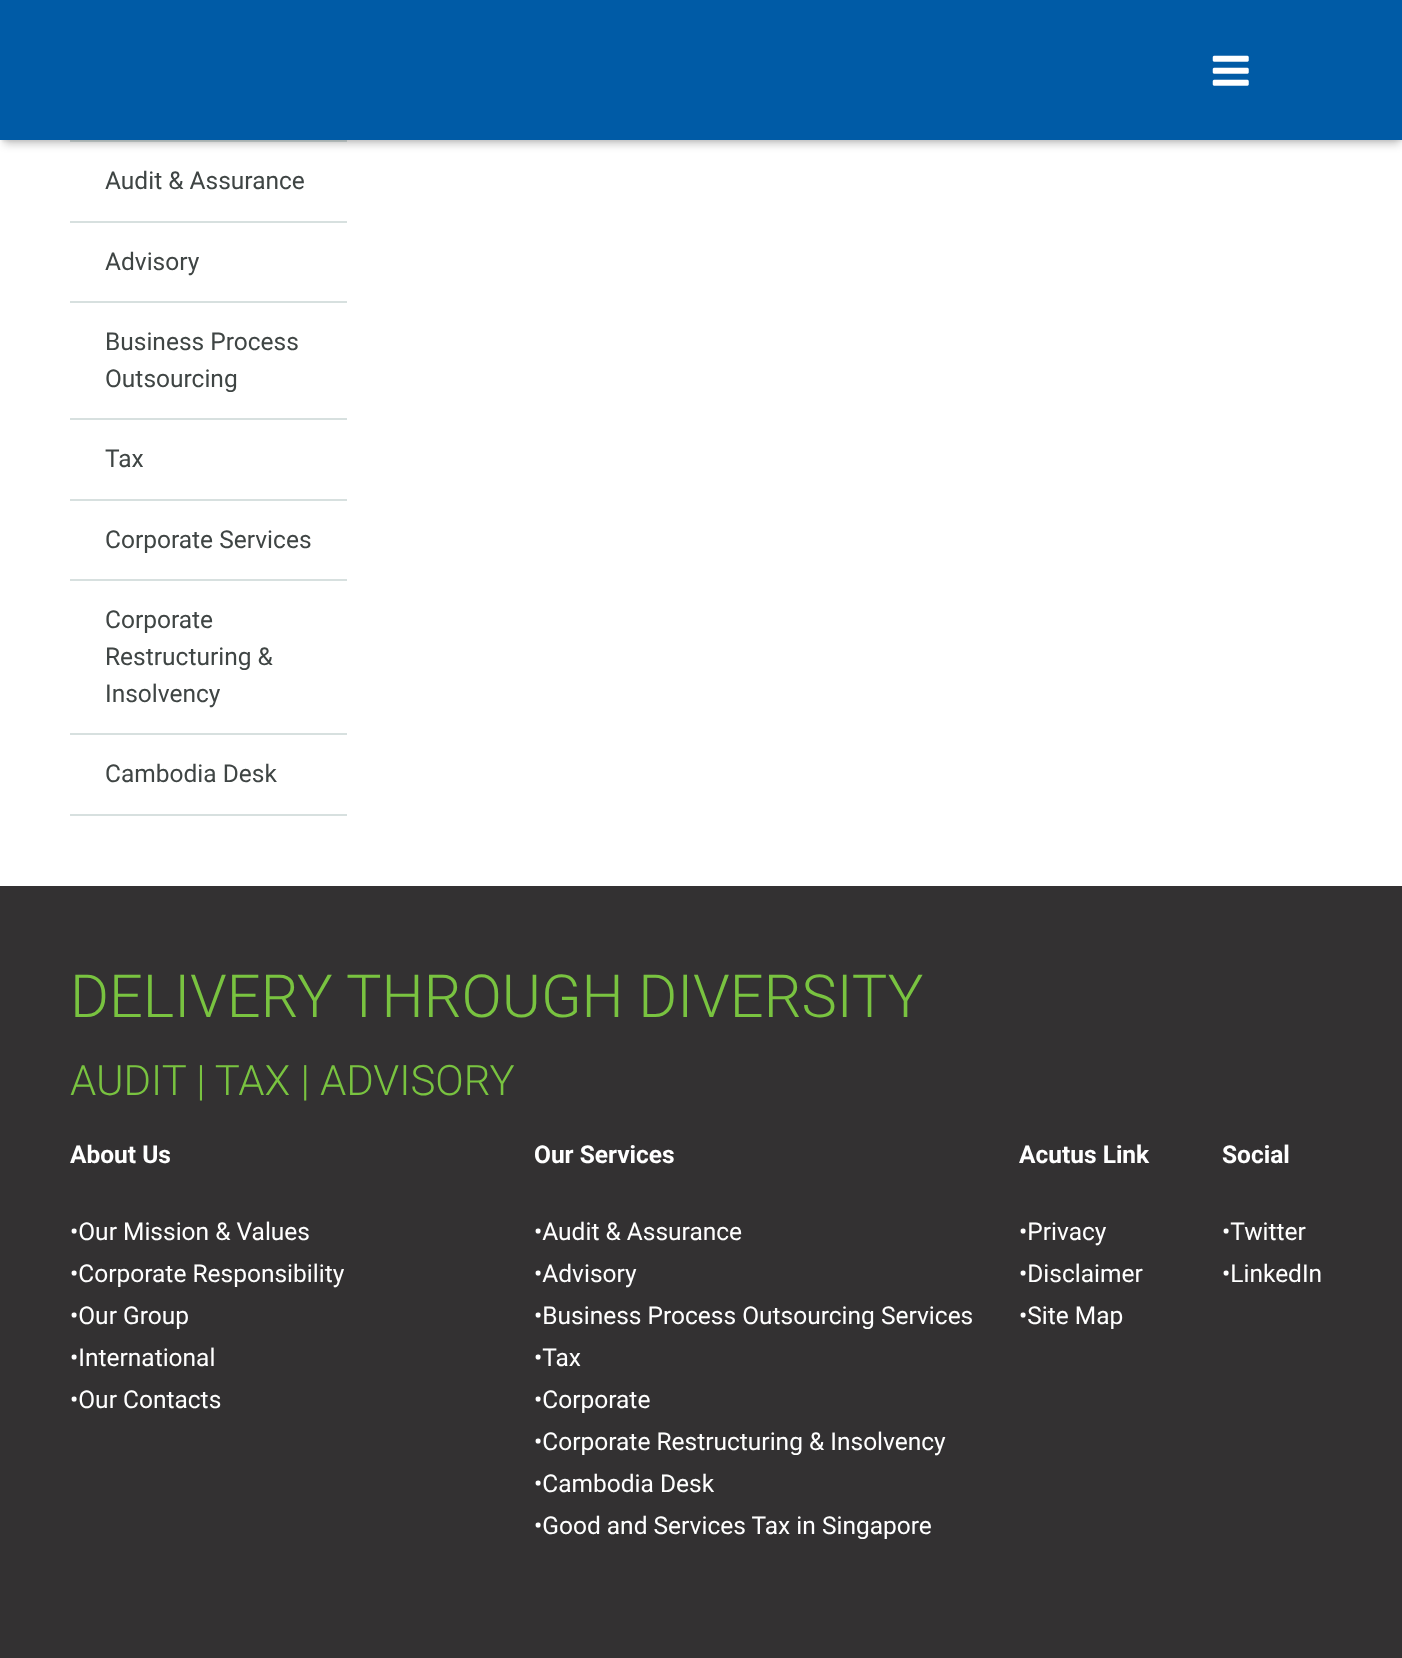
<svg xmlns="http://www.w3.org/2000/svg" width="1402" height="1658">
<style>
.a{font:24.5px Roboto;fill:#3f4544}
.b{font:300 59.5px Roboto;fill:#79c340}
.c{font:300 42px Roboto;fill:#79c340}
.d{font:bold 24.5px Roboto;fill:#fff}
.e{font:24.5px Roboto;fill:#fff}
</style>
<rect width="100%" height="100%" fill="#333132"/>
<path fill="#fff" d="M0 140h1402v746H0z"/>
<path fill="#d7e0df" d="M70 140h277v2H70z"/>
<path fill="#0000000d" filter="blur(1px)" d="M2 5h1400v137H2z"/>
<path fill="#00000038" filter="blur(4.5px)" d="M4 11h1396v133H4z"/>
<path fill="#005ba6" d="M0 0h1402v140H0z"/>
<image href="1.png" x="1212" y="55" width="37" height="31"/>
<path fill="#d7e0df" d="M70 814h277v2H70z"/>
<path fill="#d7e0df" d="M70 221h277v2H70z"/>
<path fill="#d7e0df" d="M70 301h277v2H70z"/>
<path fill="#d7e0df" d="M70 418h277v2H70z"/>
<path fill="#d7e0df" d="M70 499h277v2H70z"/>
<path fill="#d7e0df" d="M70 579h277v2H70z"/>
<path fill="#d7e0df" d="M70 733h277v2H70z"/>
<text class="a" x="105" y="189">Audit &amp; Assurance</text>
<text class="a" x="105" y="270">Advisory</text>
<text class="a" x="105" y="350">Business Process</text>
<text class="a" x="105" y="387">Outsourcing</text>
<text class="a" x="105" y="467">Tax</text>
<text class="a" x="105" y="548">Corporate Services</text>
<text class="a" x="105" y="628">Corporate</text>
<text class="a" x="105" y="665">Restructuring &amp;</text>
<text class="a" x="105" y="702">Insolvency</text>
<text class="a" x="105" y="782">Cambodia Desk</text>
<text class="b" x="70" y="1017">DELIVERY THROUGH DIVERSITY</text>
<text class="c" x="70" y="1095">AUDIT | TAX | ADVISORY</text>
<text class="d" x="70" y="1163">About Us</text>
<text class="e" x="70" y="1240">•Our Mission &amp; Values</text>
<text class="e" x="70" y="1282">•Corporate Responsibility</text>
<text class="e" x="70" y="1324">•Our Group</text>
<text class="e" x="70" y="1366">•International</text>
<text class="e" x="70" y="1408">•Our Contacts</text>
<text class="d" x="534" y="1163">Our Services</text>
<text class="e" x="534" y="1240">•Audit &amp; Assurance</text>
<text class="e" x="534" y="1282">•Advisory</text>
<text class="e" x="534" y="1324">•Business Process Outsourcing Services</text>
<text class="e" x="534" y="1366">•Tax</text>
<text class="e" x="534" y="1408">•Corporate</text>
<text class="e" x="534" y="1450">•Corporate Restructuring &amp; Insolvency</text>
<text class="e" x="534" y="1492">•Cambodia Desk</text>
<text class="e" x="534" y="1534">•Good and Services Tax in Singapore</text>
<text class="d" x="1019" y="1163">Acutus Link</text>
<text class="e" x="1019" y="1240">•Privacy</text>
<text class="e" x="1019" y="1282">•Disclaimer</text>
<text class="e" x="1019" y="1324">•Site Map</text>
<text class="d" x="1222" y="1163">Social</text>
<text class="e" x="1222" y="1240">•Twitter</text>
<text class="e" x="1222" y="1282">•LinkedIn</text>
</svg>
